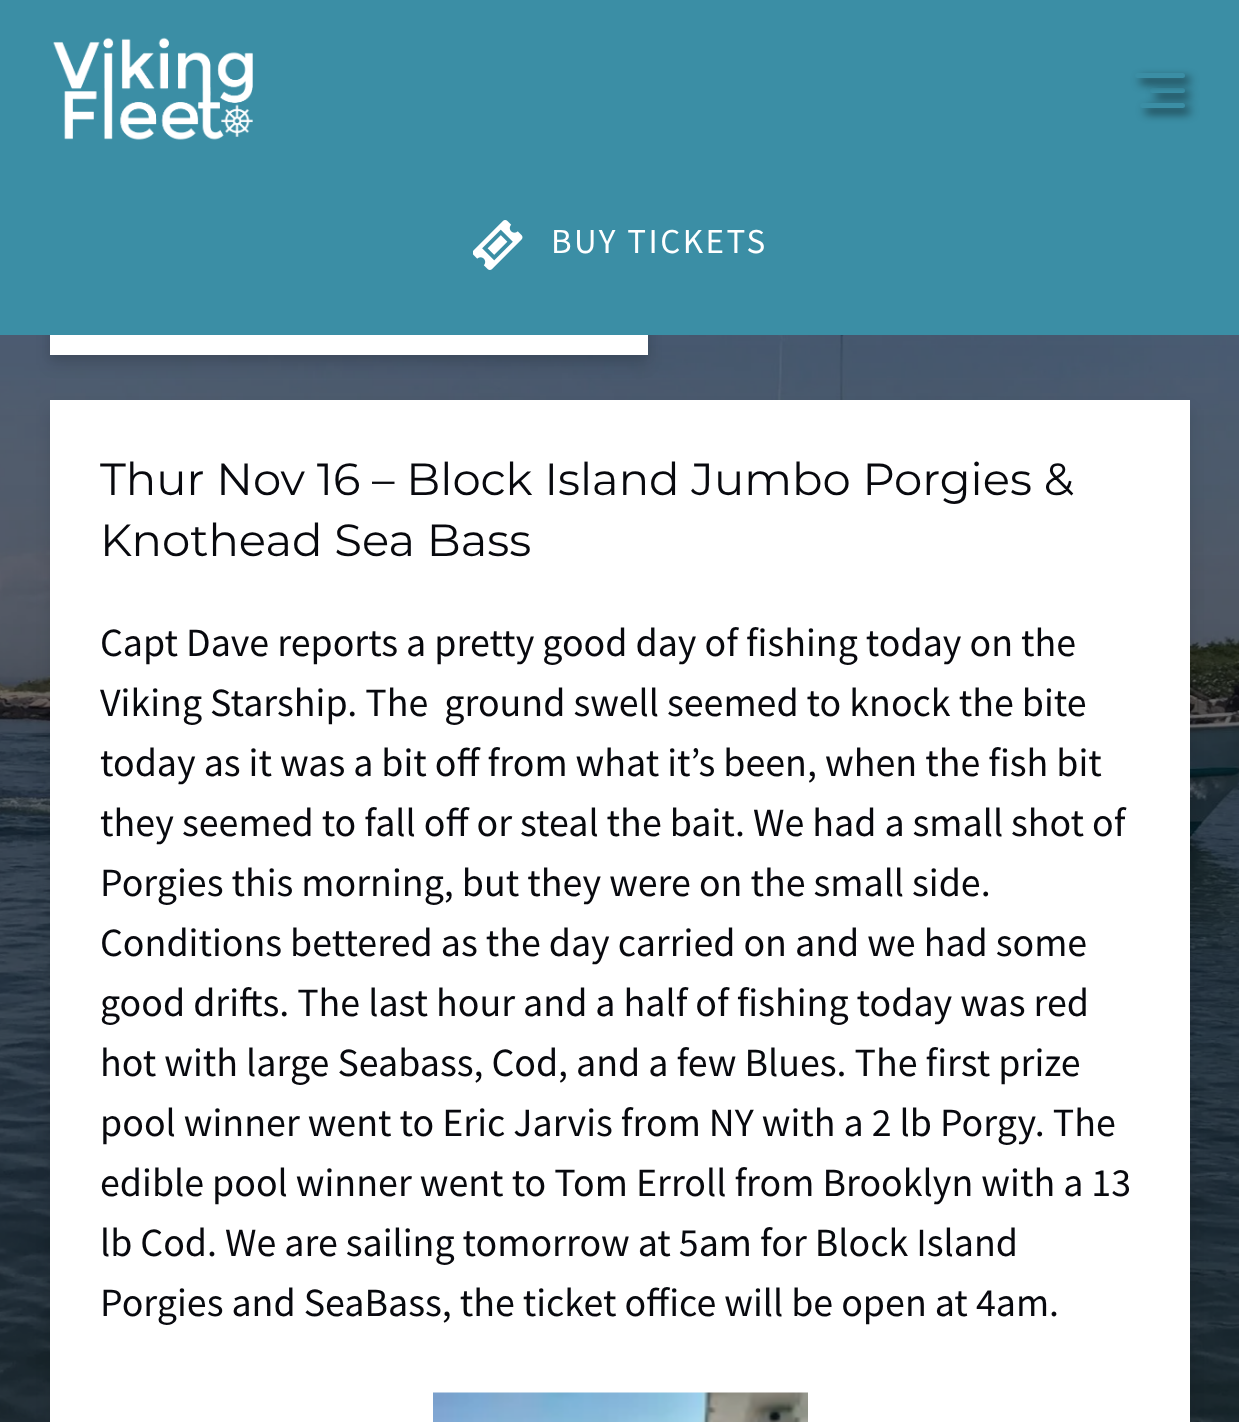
<svg xmlns="http://www.w3.org/2000/svg" width="1239" height="1422">
<style>
.a{font:35px Source Sans Pro;letter-spacing:2.5px;fill:#fff}
.b{font:100 45px Montserrat;fill:#08090e}
.c{font:40px Source Sans Pro;fill:#08090e}
</style>
<rect width="100%" height="100%" fill="#fff"/>
<image href="3.png" x="0" y="335" width="1239" height="1087"/>
<path fill="#0000001a" filter="blur(7.5px)" d="M50 280h598v85H50z"/>
<path fill="#00000014" filter="blur(4px)" d="M50 273h598v85H50z"/>
<path fill="#3b8ea5" d="M0 0h1239v335H0z"/>
<image href="1.png" x="53" y="37" width="200" height="103"/>
<rect fill="#000000bf" filter="blur(5px)" x="1155" y="93" width="35" height="5" rx="2.5"/>
<rect fill="#3b8ea5" x="1150" y="88" width="35" height="5" rx="2.5"/>
<rect fill="#000000bf" filter="blur(5px)" x="1140" y="78" width="50" height="5" rx="2.5"/>
<rect fill="#3b8ea5" x="1135" y="73" width="50" height="5" rx="2.5"/>
<rect fill="#000000bf" filter="blur(5px)" x="1145" y="108" width="45" height="5" rx="2.5"/>
<rect fill="#3b8ea5" x="1140" y="103" width="45" height="5" rx="2.5"/>
<image href="2.png" x="473" y="220" width="50" height="50"/>
<path fill="#fff" d="M50 335h598v20H50z"/>
<path fill="#0000001a" filter="blur(7.5px)" d="M50 410h1140v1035H50z"/>
<path fill="#fff" d="M50 400h1140v1022H50z"/>
<image href="4.png" x="433" y="1392" width="375" height="30"/>
<text class="a" x="551" y="253">BUY TICKETS</text>
<text class="b" x="100" y="495">Thur Nov 16 – Block Island Jumbo Porgies &amp;</text>
<text class="b" x="100" y="556">Knothead Sea Bass</text>
<text class="c" x="100" y="656">Capt Dave reports a pretty good day of fishing today on the</text>
<text class="c" xml:space="preserve" x="100" y="716">Viking Starship. The  ground swell seemed to knock the bite</text>
<text class="c" x="100" y="776">today as it was a bit off from what it’s been, when the fish bit</text>
<text class="c" x="100" y="836">they seemed to fall off or steal the bait. We had a small shot of</text>
<text class="c" x="100" y="896">Porgies this morning, but they were on the small side.</text>
<text class="c" x="100" y="956">Conditions bettered as the day carried on and we had some</text>
<text class="c" x="100" y="1016">good drifts. The last hour and a half of fishing today was red</text>
<text class="c" x="100" y="1076">hot with large Seabass, Cod, and a few Blues. The first prize</text>
<text class="c" x="100" y="1136">pool winner went to Eric Jarvis from NY with a 2 lb Porgy. The</text>
<text class="c" x="100" y="1196">edible pool winner went to Tom Erroll from Brooklyn with a 13</text>
<text class="c" x="100" y="1256">lb Cod. We are sailing tomorrow at 5am for Block Island</text>
<text class="c" x="100" y="1316">Porgies and SeaBass, the ticket office will be open at 4am.</text>
</svg>
